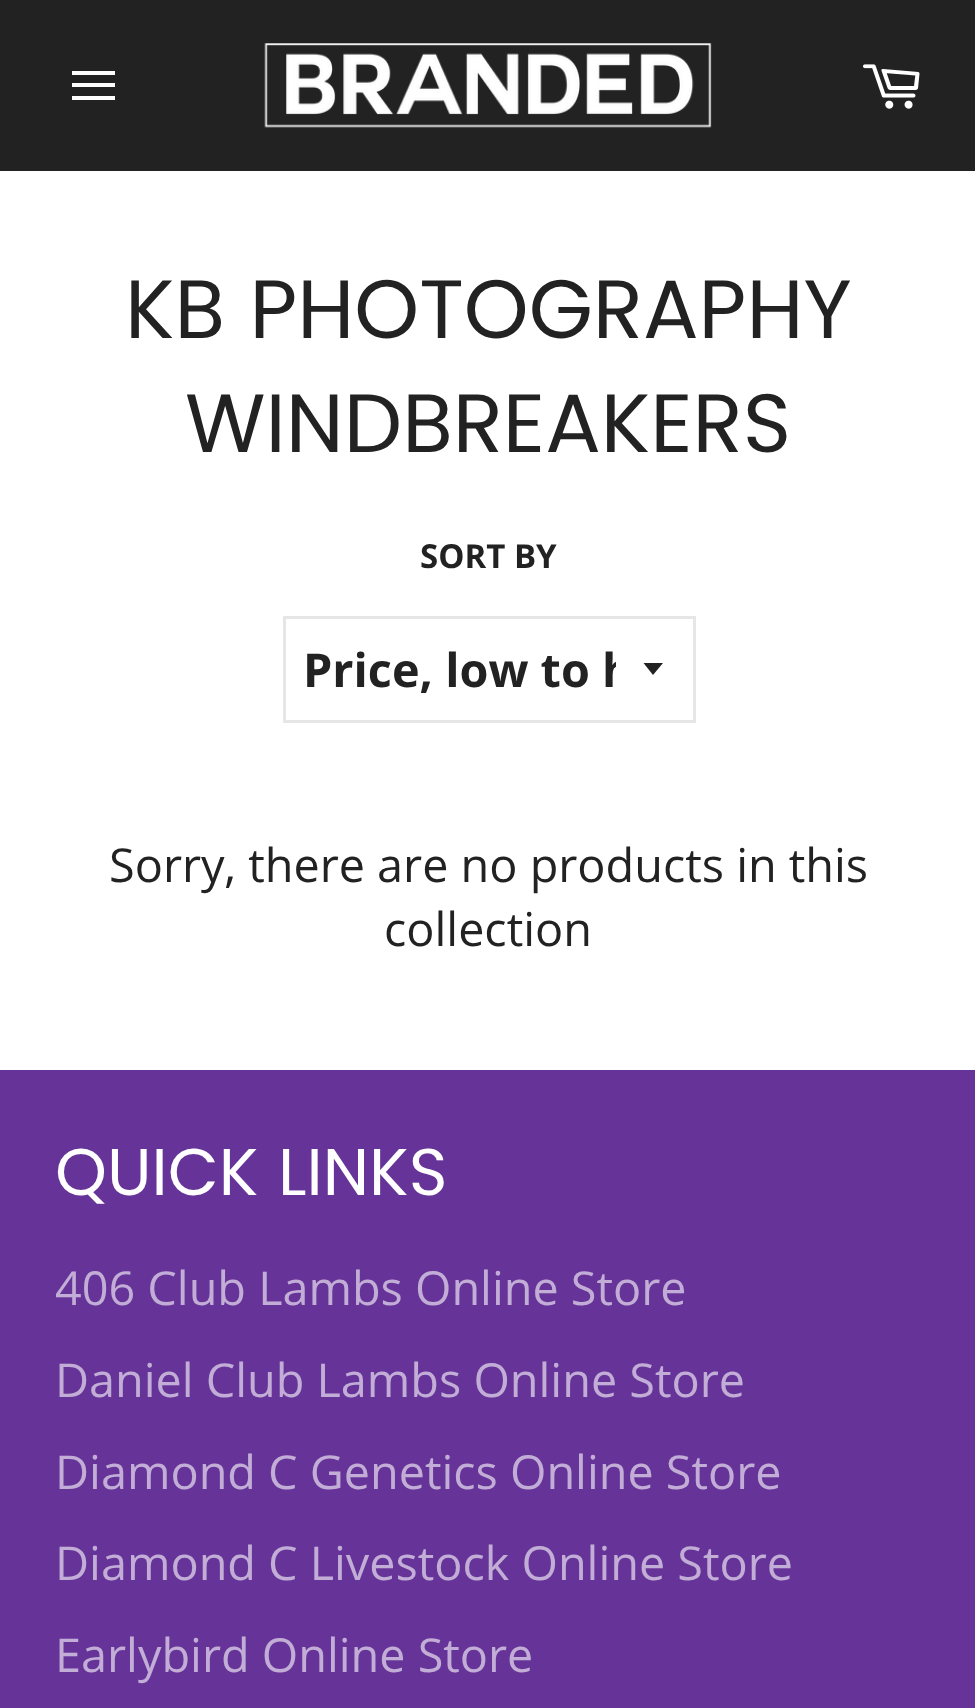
<svg xmlns="http://www.w3.org/2000/svg" width="975" height="1708">
<style>
.a{font:82.5px Poppins;fill:#222}
.b{font:bold 33px Open Sans;fill:#222}
.c{font:bold 46.75px Open Sans;fill:#222}
.d{font:46.75px Open Sans;fill:#222}
.e{font:66px Poppins;fill:#fff}
.f{font:46.75px Open Sans;fill:#c2add6}
</style>
<defs>
<clipPath id="clip1"><path d="M303 638h313v63H303z"/></clipPath>
</defs>
<rect width="100%" height="100%" fill="#fff"/>
<path fill="#222" d="M0 0h975v171H0z"/>
<path fill="#fff" d="M72 83h43v4h-43zm0-12h43v4h-43zm0 25h43v4h-43z"/>
<image href="1.png" x="264" y="43" width="448" height="85"/>
<image href="2.png" x="863" y="64" width="57" height="45"/>
<path fill="#222" d="M643.5 663l9.5 12l10-12z"/>
<path fill="none" stroke="#e6e6e6" stroke-width="3" d="M284.5 617.5h410v104H284.5z"/>
<path fill="#639" d="M0 1070h975v638H0z"/>
<text class="a" x="125" y="338">KB PHOTOGRAPHY</text>
<text class="a" x="185" y="452">WINDBREAKERS</text>
<text class="b" x="420" y="568">SORT BY</text>
<g clip-path="url(#clip1)">
<text class="c" x="303" y="687">Price, low to h</text>
</g>
<text class="d" x="109" y="882">Sorry, there are no products in this</text>
<text class="d" x="384" y="946">collection</text>
<text class="e" x="55" y="1195">QUICK LINKS</text>
<text class="f" x="55" y="1305">406 Club Lambs Online Store</text>
<text class="f" x="55" y="1397">Daniel Club Lambs Online Store</text>
<text class="f" x="55" y="1489">Diamond C Genetics Online Store</text>
<text class="f" x="55" y="1580">Diamond C Livestock Online Store</text>
<text class="f" x="55" y="1672">Earlybird Online Store</text>
</svg>
